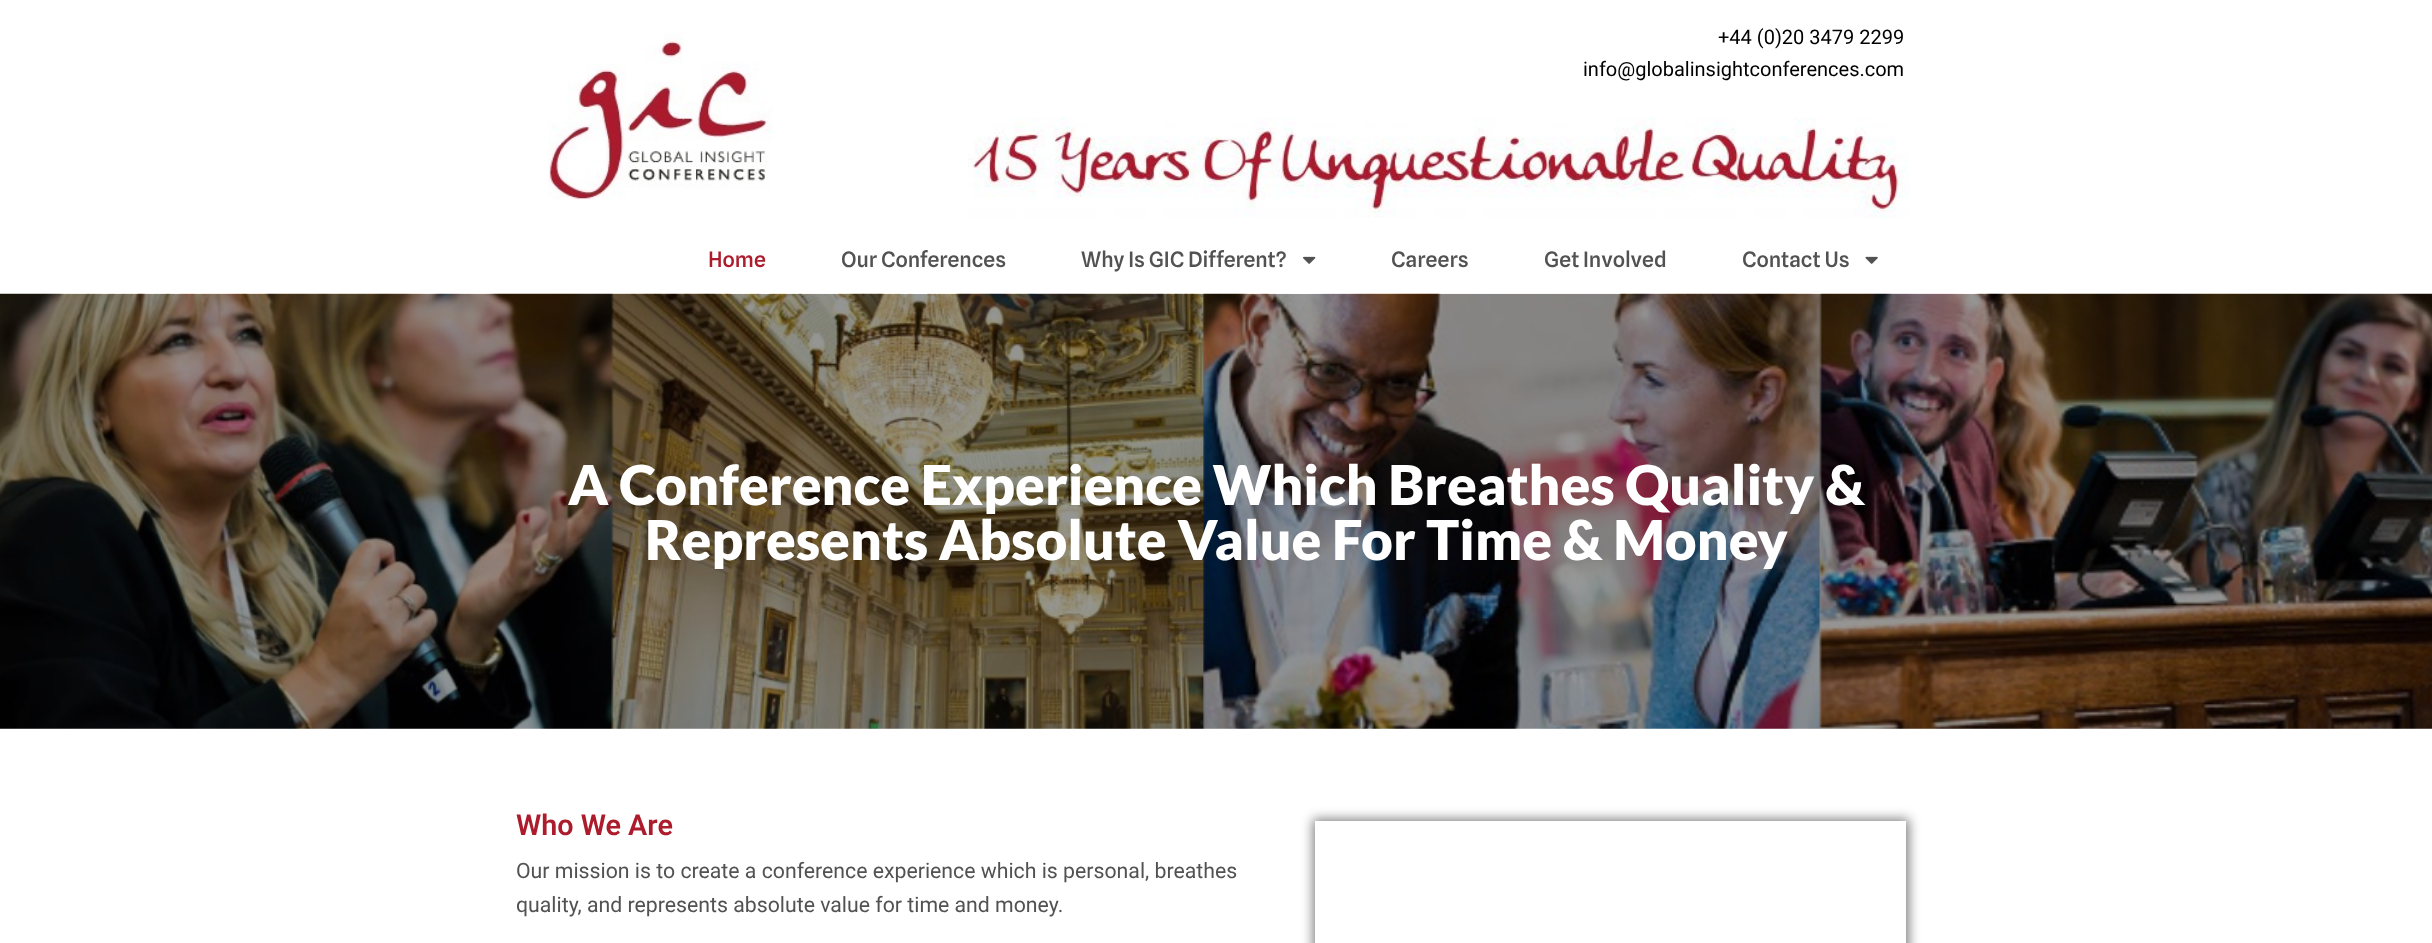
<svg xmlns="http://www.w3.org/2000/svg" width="2432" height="943">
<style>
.a{font:20px Roboto;fill:#000}
.b{font:500 21.25px Spline Sans;fill:#ac1c2c}
.c{font:500 21.25px Spline Sans;fill:#525252}
.d{font:900 55px Lato;fill:#fff}
.e{font:600 28.75px Roboto;fill:#ac1c2c}
.f{font:21.25px Roboto;fill:#525252}
</style>
<defs>
<clipPath id="clip1"><path d="M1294 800h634v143h-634zm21 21h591v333h-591z" clip-rule="evenodd"/></clipPath>
</defs>
<rect width="100%" height="100%" fill="#fff"/>
<image href="1.png" x="548" y="31" width="225" height="169"/>
<image href="2.png" x="968" y="117" width="942" height="101"/>
<image href="3.png" x="1303" y="256" width="13" height="8"/>
<image href="4.png" x="1865" y="256" width="13" height="8"/>
<image href="5.png" x="0" y="293" width="2432" height="436"/>
<g clip-path="url(#clip1)">
<path fill="#00000080" filter="blur(6px)" d="M1313 819h596v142H1313z"/>
</g>
<text class="a" x="1718" y="44">+44 (0)20 3479 2299</text>
<text class="a" x="1583" y="76">info@globalinsightconferences.com</text>
<text class="b" x="708" y="267">Home</text>
<text class="c" x="841" y="267">Our Conferences</text>
<text class="c" x="1081" y="267">Why Is GIC Different?</text>
<text class="c" x="1391" y="267">Careers</text>
<text class="c" x="1544" y="267">Get Involved</text>
<text class="c" x="1742" y="267">Contact Us</text>
<text class="d" x="568" y="505">A Conference Experience Which Breathes Quality &amp;</text>
<text class="d" x="645" y="560">Represents Absolute Value For Time &amp; Money</text>
<text class="e" x="516" y="835">Who We Are</text>
<text class="f" x="516" y="878">Our mission is to create a conference experience which is personal, breathes</text>
<text class="f" x="516" y="912">quality, and represents absolute value for time and money.</text>
</svg>
